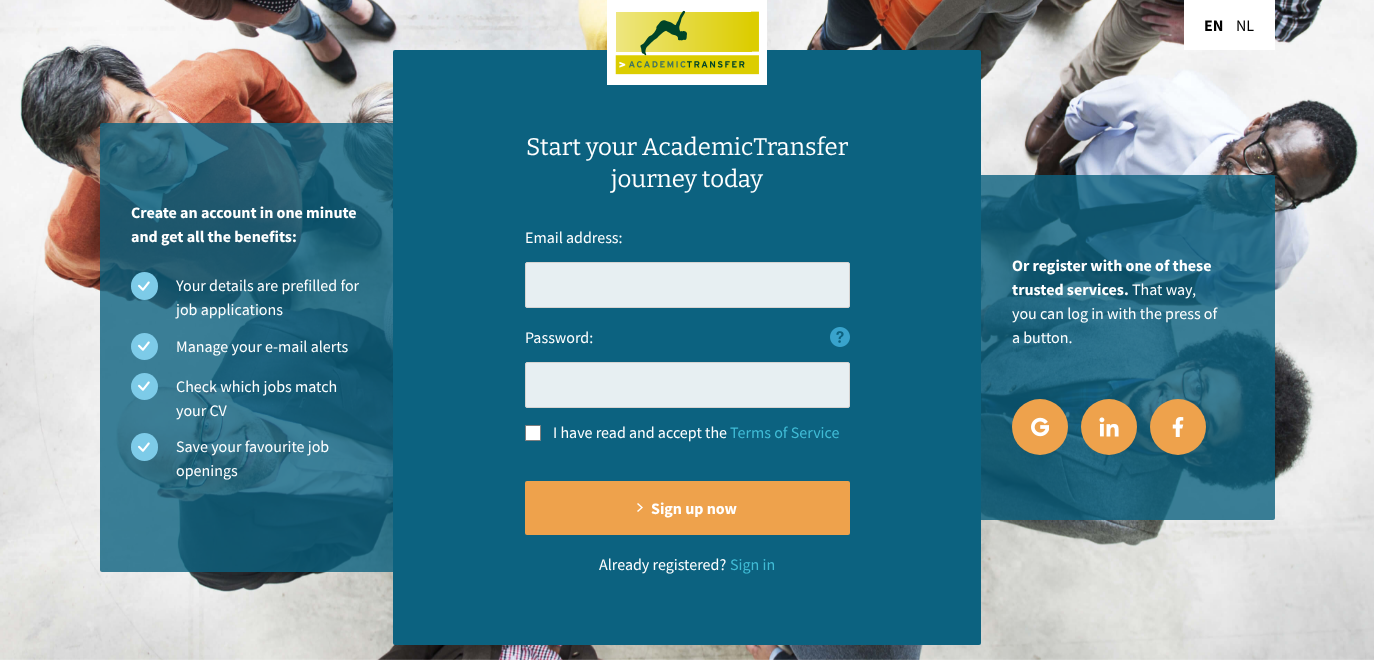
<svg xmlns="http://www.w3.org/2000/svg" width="1374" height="660">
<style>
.a{font:bold 16px Source Sans Pro;fill:#000}
.b{font:16px Source Sans Pro;fill:#000}
.c{font:bold 16px Source Sans Pro;fill:#fff}
.d{font:16px Source Sans Pro;fill:#fff}
.e{font:24px Bitter;fill:#fff}
.f{font:16px Source Sans Pro;fill:#40bcd6}
</style>
<rect width="100%" height="100%" fill="#fff"/>
<image href="1.png" x="0" y="0" width="1374" height="660"/>
<rect fill="#0c6280" x="393" y="50" width="588" height="595" rx="2"/>
<image href="2.png" x="607" y="0" width="160" height="85"/>
<path fill="#fff" d="M1184 0h91v50H1184z"/>
<path fill="#0c6280cc" d="M102 123h291v449h-291c-1 0-2-1-2-2v-445c0-1 1-2 2-2z"/>
<rect fill="#7dcbe8" x="131" y="272" width="27" height="28" rx="13.5"/>
<image href="3.png" x="138" y="281" width="12" height="10"/>
<circle fill="#7dcbe8" cx="144.5" cy="346.5" r="13.5"/>
<image href="3.png" x="138" y="341" width="12" height="10"/>
<circle fill="#7dcbe8" cx="144.5" cy="386.5" r="13.5"/>
<image href="3.png" x="138" y="381" width="12" height="10"/>
<rect fill="#7dcbe8" x="131" y="433" width="27" height="28" rx="13.5"/>
<image href="3.png" x="138" y="442" width="12" height="10"/>
<rect fill="#e7eff2" stroke="#d7d4d2" x="525.5" y="262.5" width="324" height="45" rx="1.5"/>
<image href="4.png" x="830" y="327" width="20" height="20"/>
<rect fill="#e7eff2" stroke="#d7d4d2" x="525.5" y="362.5" width="324" height="45" rx="1.5"/>
<path fill="#fff" stroke="#7f7f7f" d="M525.5 425.5h15v15H525.5z"/>
<rect fill="#eea24c" x="525" y="481" width="325" height="54" rx="2"/>
<image href="5.png" x="637" y="503" width="6" height="9"/>
<path fill="#0c6280cc" d="M981 175h292c1 0 2 1 2 2v341c0 1-1 2-2 2h-292z"/>
<circle fill="#eea24c" cx="1040" cy="427" r="28"/>
<image href="6.png" x="1031" y="417" width="18" height="20"/>
<circle fill="#eea24c" cx="1109" cy="427" r="28"/>
<image href="7.png" x="1099" y="417" width="20" height="20"/>
<circle fill="#eea24c" cx="1178" cy="427" r="28"/>
<image href="8.png" x="1172" y="417" width="12" height="20"/>
<text class="a" x="1204" y="31">EN</text>
<text class="b" x="1236" y="31">NL</text>
<text class="c" x="131" y="218">Create an account in one minute</text>
<text class="c" x="131" y="242">and get all the benefits:</text>
<text class="d" x="176" y="291">Your details are prefilled for</text>
<text class="d" x="176" y="315">job applications</text>
<text class="d" x="176" y="352">Manage your e-mail alerts</text>
<text class="d" x="176" y="392">Check which jobs match</text>
<text class="d" x="176" y="416">your CV</text>
<text class="d" x="176" y="452">Save your favourite job</text>
<text class="d" x="176" y="476">openings</text>
<text class="e" x="526" y="155">Start your AcademicTransfer</text>
<text class="e" x="611" y="187">journey today</text>
<text class="d" x="525" y="243">Email address:</text>
<text class="d" x="525" y="343">Password:</text>
<text class="d" x="553" y="438">I have read and accept the</text>
<text class="f" x="730" y="438">Terms of Service</text>
<text class="c" x="651" y="514">Sign up now</text>
<text class="d" x="599" y="570">Already registered?</text>
<text class="f" x="730" y="570">Sign in</text>
<text class="c" x="1012" y="271">Or register with one of these</text>
<text class="c" x="1012" y="295">trusted services.</text>
<text class="d" x="1132" y="295">That way,</text>
<text class="d" x="1012" y="319">you can log in with the press of</text>
<text class="d" x="1012" y="343">a button.</text>
</svg>
